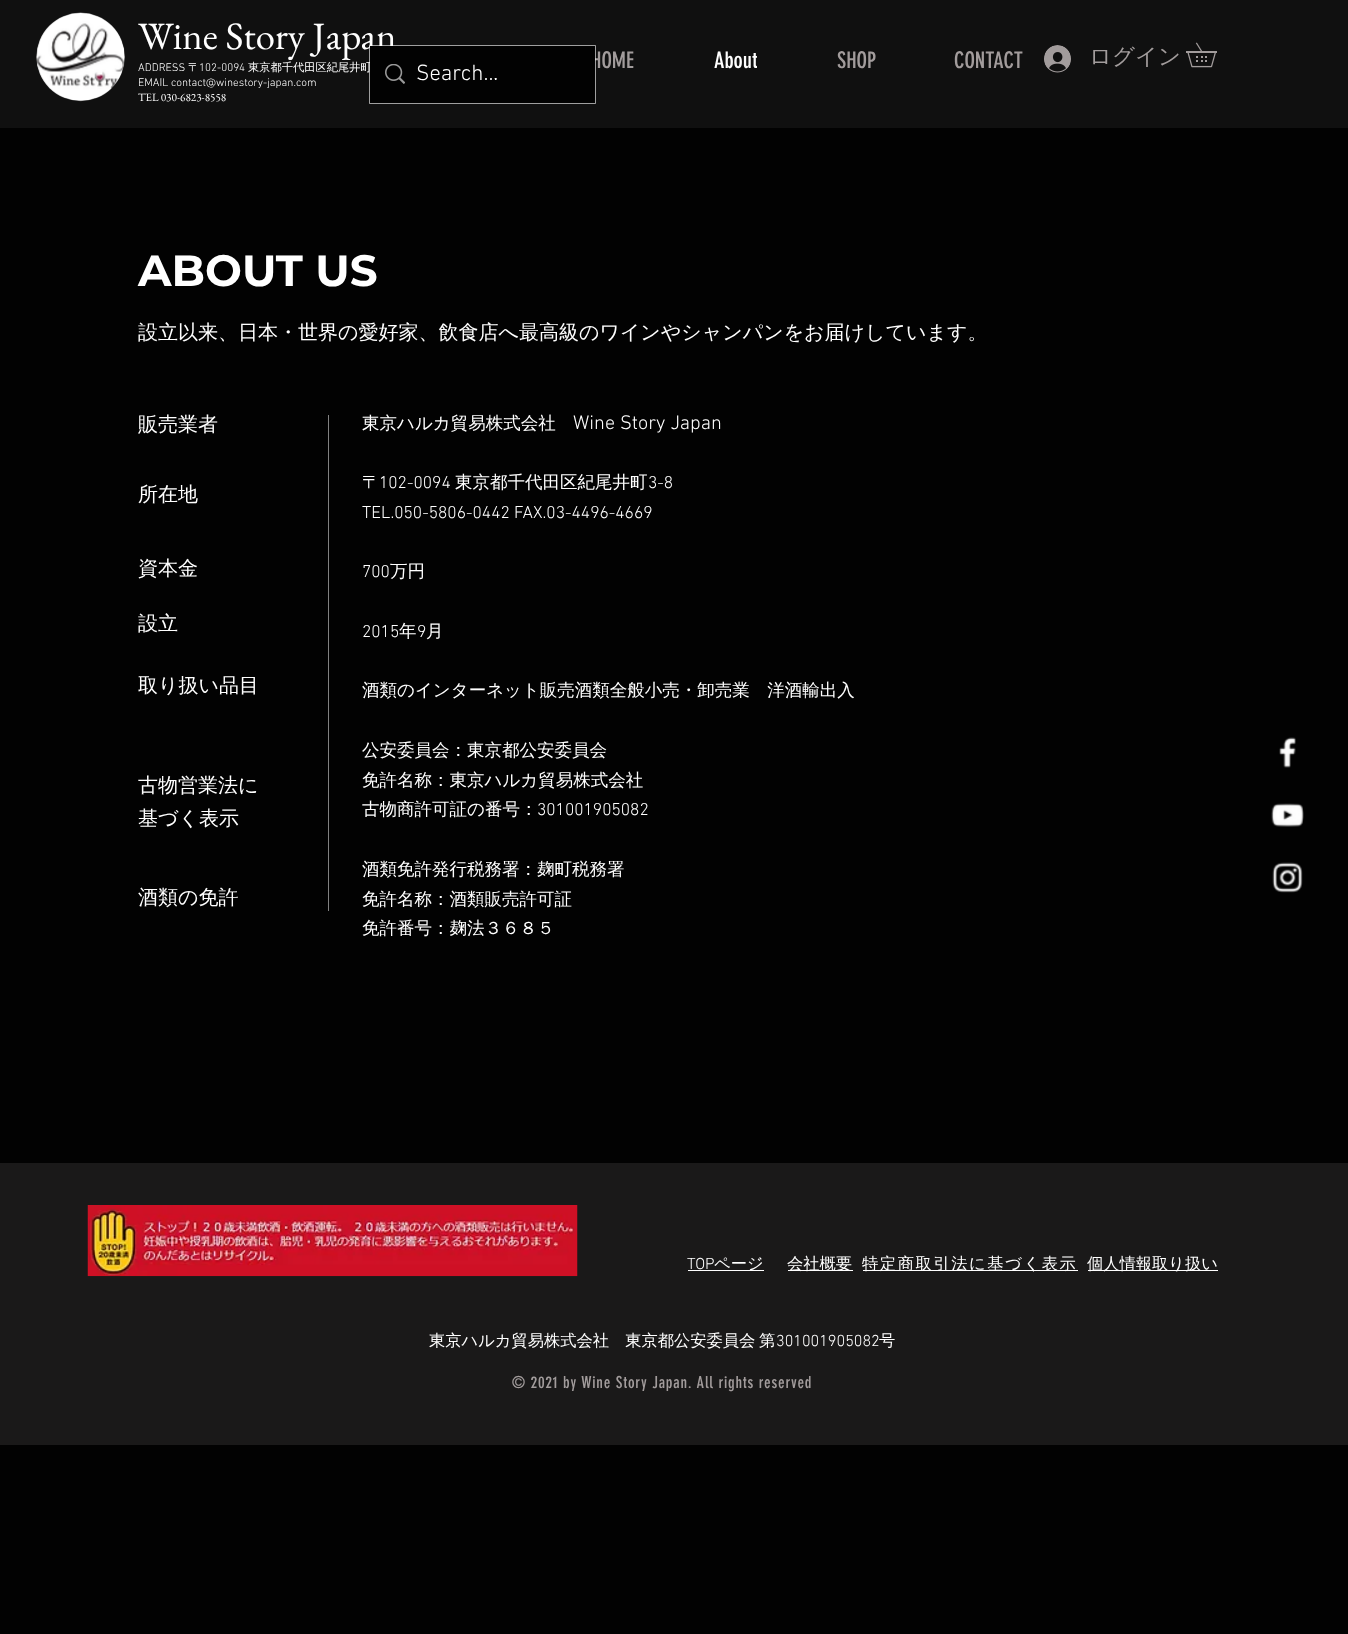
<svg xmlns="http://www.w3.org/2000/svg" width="1348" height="1634">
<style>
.a{font:38.75px EB Garamond;fill:#fff}
.b{font:300 11.25px 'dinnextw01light';fill:#fff}
.c{font:500 11.25px WenQuanYi Zen Hei;fill:#fff}
.d{font:11.25px EB Garamond;fill:#fff}
.e{font:22.5px 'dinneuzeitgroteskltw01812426';fill:#a29c9c}
.f{font:22.5px 'dinneuzeitgroteskltw01812426';fill:#fff}
.g{font:500 22.5px WenQuanYi Zen Hei;fill:#a29c9c}
.h{font:300 22.5px 'dinnextw01light';fill:#fff}
.i{font:bold 43.75px Montserrat;fill:#fff}
.j{font:500 20px WenQuanYi Zen Hei;fill:#fff}
.k{font:500 17.5px WenQuanYi Zen Hei;fill:#fff}
.l{font:300 20px 'dinnextw01light';fill:#fff}
.m{font:300 17.5px 'dinnextw01light';fill:#fff}
.n{font:300 16.25px 'dinnextw01light';fill:#fff}
.o{font:500 16.25px WenQuanYi Zen Hei;fill:#fff}
.p{font:500 16.25px WenQuanYi Zen Hei;letter-spacing:1.6px;fill:#fff}
.q{font:16.25px 'dinneuzeitgroteskltw01812426';letter-spacing:0.8px;fill:#a29c9c}
</style>
<rect width="100%" height="100%" fill="#020202"/>
<path fill="#101010" d="M0 0h1348v128H0z"/>
<image href="1.png" x="36" y="12" width="89" height="90"/>
<image href="2.png" x="1044" y="45" width="27" height="28"/>
<image href="3.png" x="1186" y="42" width="31" height="26"/>
<path fill="#818181" d="M328 415h1v496H328z"/>
<image href="5.png" x="1279" y="737" width="17" height="31"/>
<image href="6.png" x="1271" y="803" width="33" height="24"/>
<image href="7.png" x="1272" y="862" width="31" height="31"/>
<path fill="#1a1919" d="M0 1163h1348v282H0z"/>
<image href="8.png" x="87" y="1205" width="491" height="72"/>
<path fill="#fff" d="M688 1270h76v1H688z"/>
<path fill="#fff" d="M788 1270h65v1H788z"/>
<path fill="#fff" d="M863 1270h215v1H863z"/>
<path fill="#fff" d="M1088 1270h130v1H1088z"/>
<text class="a" x="138" y="49">Wine Story Japan</text>
<text class="b" x="138" y="71">ADDRESS</text>
<text class="c" x="188" y="71">〒</text>
<text class="b" x="199" y="71">102-0094</text>
<text class="c" x="248" y="71">東京都千代田区紀尾井町</text>
<text class="b" x="138" y="86">EMAIL contact@winestory-japan.com</text>
<text class="d" x="138" y="101">TEL 030-6823-8558</text>
<text class="e" x="591" y="68">HOME</text>
<text class="f" x="714" y="68">About</text>
<text class="e" x="837" y="68">SHOP</text>
<text class="e" x="954" y="68">CONTACT</text>
<text class="g" x="1089" y="64">ログイン</text>
<path fill="none" stroke="#ffffff99" d="M369.5 45.5h226v58H369.5z"/>
<path fill="#020202" d="M370 46h225v57H370z"/>
<image href="4.png" x="385" y="64" width="20" height="20"/>
<text class="h" x="416" y="80">Search...</text>
<text class="i" x="138" y="286">ABOUT US</text>
<text class="j" x="138" y="339">設立以来、日本・世界の愛好家、飲食店へ最高級のワインやシャンパンをお届けしています。</text>
<text class="j" x="138" y="431">販売業者</text>
<text class="j" x="138" y="501">所在地</text>
<text class="j" x="138" y="575">資本金</text>
<text class="j" x="138" y="630">設立</text>
<text class="j" x="138" y="692">取り扱い品目</text>
<text class="j" x="138" y="792">古物営業法に</text>
<text class="j" x="138" y="825">基づく表示</text>
<text class="j" x="138" y="904">酒類の免許</text>
<text class="k" x="362" y="429">東京ハルカ貿易株式会社</text>
<text class="l" x="573" y="429">Wine Story Japan</text>
<text class="k" x="362" y="488">〒</text>
<text class="m" x="379" y="488">102-0094</text>
<text class="k" x="455" y="488">東京都千代田区紀尾井町</text>
<text class="m" x="648" y="488">3-8</text>
<text class="m" x="362" y="518">TEL.050-5806-0442 FAX.03-4496-4669</text>
<text class="m" x="362" y="577">700</text>
<text class="k" x="390" y="577">万円</text>
<text class="m" x="362" y="637">2015</text>
<text class="k" x="399" y="637">年</text>
<text class="m" x="417" y="637">9</text>
<text class="k" x="426" y="637">月</text>
<text class="k" x="362" y="696">酒類のインターネット販売酒類全般小売・卸売業　洋酒輸出入</text>
<text class="k" x="362" y="756">公安委員会：東京都公安委員会</text>
<text class="k" x="362" y="786">免許名称：東京ハルカ貿易株式会社</text>
<text class="k" x="362" y="815">古物商許可証の番号：</text>
<text class="m" x="537" y="815">301001905082</text>
<text class="k" x="362" y="875">酒類免許発行税務署：麹町税務署</text>
<text class="k" x="362" y="905">免許名称：酒類販売許可証</text>
<text class="k" x="362" y="934">免許番号：麹法３６８５</text>
<text class="n" x="687" y="1269">TOP</text>
<text class="o" x="714" y="1269">ページ</text>
<text class="o" x="787" y="1269">会社概要</text>
<text class="p" x="862" y="1269">特定商取引法に基づく表示</text>
<text class="o" x="1087" y="1269">個人情報取り扱い</text>
<text class="o" x="429" y="1346" word-spacing="-1">東京ハルカ貿易株式会社　東京都公安委員会 第</text>
<text class="n" x="776" y="1346">301001905082</text>
<text class="o" x="879" y="1346">号</text>
<text class="q" x="512" y="1388">© 2021 by Wine Story Japan. All rights reserved</text>
</svg>
